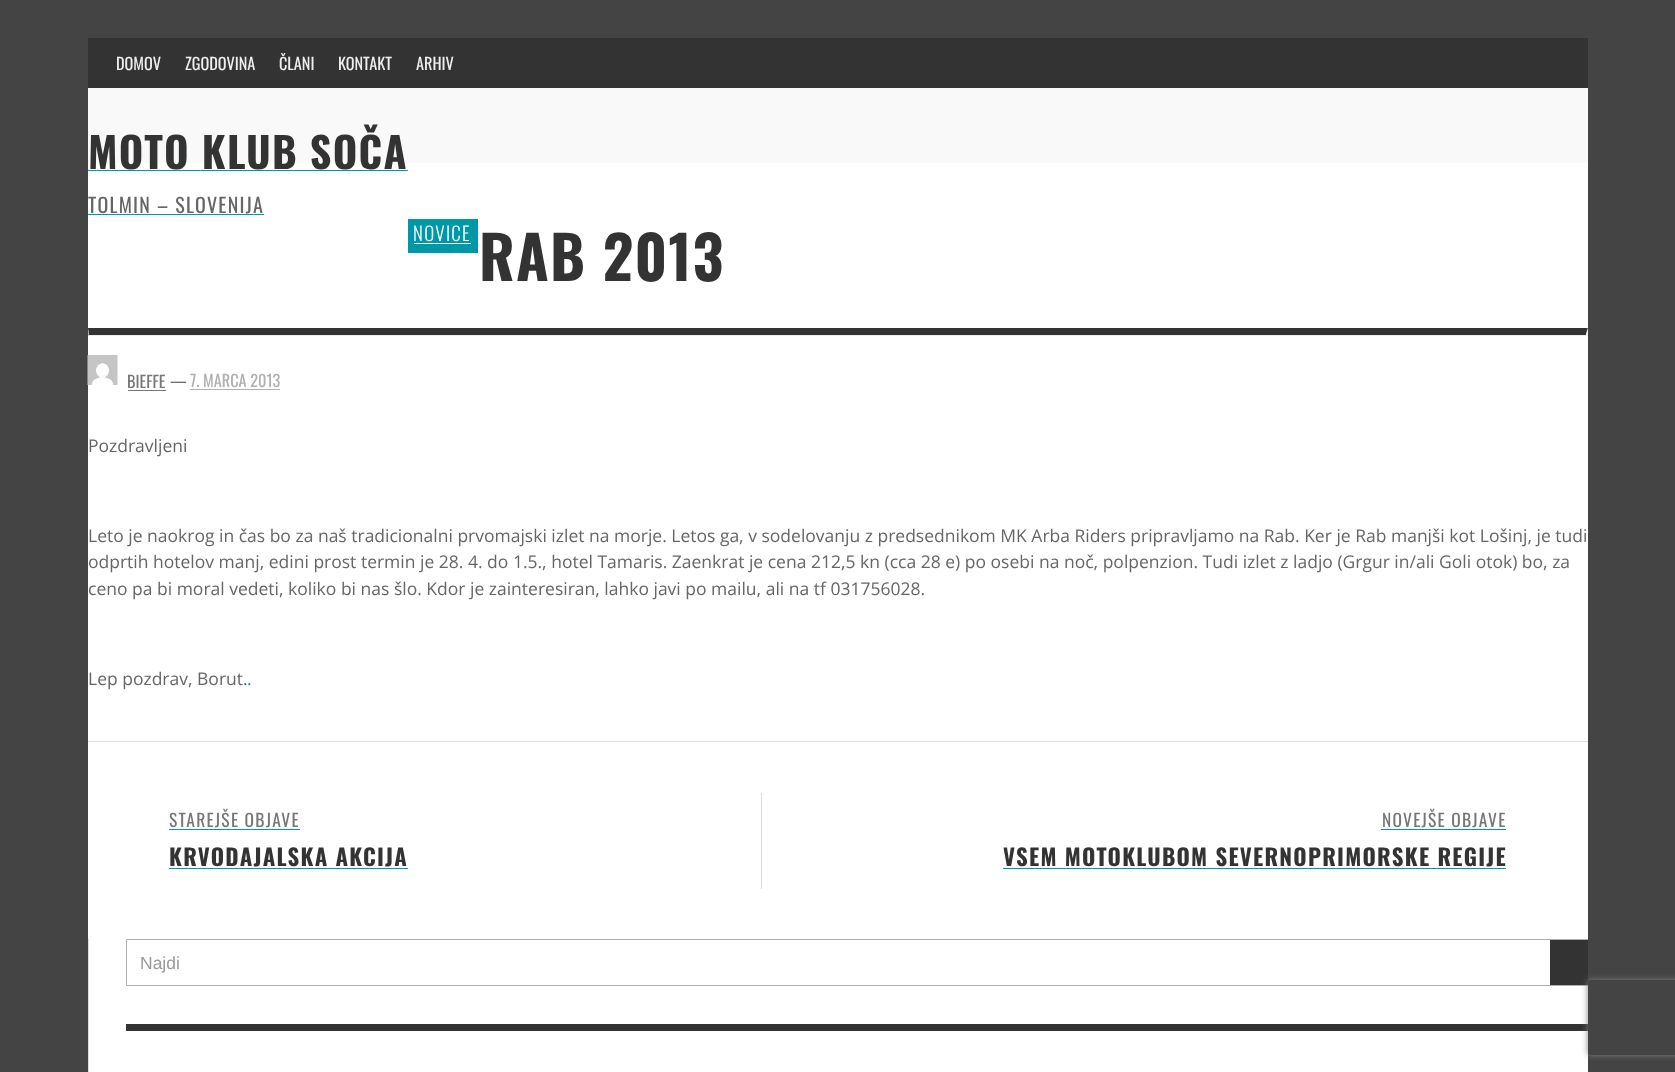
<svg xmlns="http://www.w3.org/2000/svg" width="1675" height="1072">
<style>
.a{font:16.25px Oswald;fill:#eee}
.b{font:bold 42px Oswald;letter-spacing:1.25px;fill:#333}
.c{font:20px Oswald;letter-spacing:1.25px;fill:#666}
.d{font:300 19px Oswald;letter-spacing:1.25px;fill:#fff}
.e{font:bold 59.5px Oswald;letter-spacing:1.25px;fill:#333}
.f{font:16.25px Oswald;fill:#777}
.g{font:16.25px Oswald;fill:#666}
.h{font:16.25px Oswald;fill:#b0b0b0}
.i{font:17.5px Open Sans;fill:#666}
.j{font:17.5px Open Sans;fill:#0098a6}
.k{font:17.5px Oswald;letter-spacing:1.25px;fill:#777}
.l{font:bold 22.75px Oswald;letter-spacing:1.25px;fill:#333}
.m{font:17.5px Liberation Sans;fill:#999}
</style>
<defs>
<clipPath id="clip1"><path d="M88 38h1500v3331H88z"/></clipPath>
<clipPath id="clip2"><path d="M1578 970h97v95h-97zm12.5 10h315c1.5 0 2.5 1 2.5 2.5v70c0 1.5-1 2.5-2.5 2.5h-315c-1.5 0-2.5-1-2.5-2.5v-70c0-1.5 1-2.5 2.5-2.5z" clip-rule="evenodd"/></clipPath>
</defs>
<rect width="100%" height="100%" fill="#444"/>
<path fill="#fff" d="M88 163h1500v909H88z"/>
<path fill="#333" d="M88 38h1500v50H88z"/>
<path fill="#f9f9f9" d="M88 88h1500v75H88z"/>
<path fill="#0098a6" d="M88 170h320v1H88z"/>
<path fill="#0098a6" d="M88 214h176v1H88z"/>
<path fill="#0098a6" d="M408 219h70v34H408z"/>
<path fill="#fff" d="M414 243h57v1H414z"/>
<path fill="#333" d="M88 328h1500l-2 7h-1497z"/>
<path fill="#eee" d="M1587.5 327.5v8.5l-1.5-1z"/>
<path fill="#eee" d="M88 335h1500v1H88z"/>
<g clip-path="url(#clip1)">
<path fill="#9f9f9f" d="M87.5 336v-8.5l1.5 7.5z"/>
</g>
<image href="1.png" x="87" y="355" width="31" height="30"/>
<path fill="#777" d="M128 390h38v1H128z"/>
<path fill="#b0b0b0" d="M190 389h90v1H190z"/>
<path fill="#ddd" d="M88 741h1500v1H88z"/>
<path fill="#0098a6" d="M169 829h131v1H169z"/>
<path fill="#0098a6" d="M169 868h239v1H169z"/>
<path fill="#ddd" d="M761 793h1v96H761z"/>
<path fill="#0098a6" d="M1381 829h125v1H1381z"/>
<path fill="#0098a6" d="M1003 868h503v1H1003z"/>
<path fill="#ddd" d="M88 939h1v133H88z"/>
<g clip-path="url(#clip1)">
<path fill="none" stroke="#b0b0b0" d="M126.5 939.5h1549v46H126.5z"/>
</g>
<path fill="#333" d="M1550 940h38v45H1550z"/>
<path fill="#333" d="M126 1024h1462v7H126z"/>
<g clip-path="url(#clip2)">
<rect fill="#808080" filter="blur(3px)" x="1588" y="980" width="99" height="75" rx="2.5"/>
</g>
<text class="a" x="116" y="70">DOMOV</text>
<text class="a" x="185" y="70">ZGODOVINA</text>
<text class="a" x="279" y="70">ČLANI</text>
<text class="a" x="338" y="70">KONTAKT</text>
<text class="a" x="416" y="70">ARHIV</text>
<text class="b" x="88" y="169">MOTO KLUB SOČA</text>
<text class="c" x="88" y="213">TOLMIN – SLOVENIJA</text>
<text class="d" x="413" y="241">NOVICE</text>
<text class="e" x="479" y="281">RAB 2013</text>
<text class="f" x="127" y="388">BIEFFE</text>
<text class="g" x="170" y="387">—</text>
<text class="h" x="190" y="387">7. MARCA 2013</text>
<text class="i" x="88" y="452">Pozdravljeni</text>
<text class="i" x="88" y="542">Leto je naokrog in čas bo za naš tradicionalni prvomajski izlet na morje. Letos ga, v sodelovanju z predsednikom MK Arba Riders pripravljamo na Rab. Ker je Rab manjši kot Lošinj, je tudi</text>
<text class="i" x="88" y="568">odprtih hotelov manj, edini prost termin je 28. 4. do 1.5., hotel Tamaris. Zaenkrat je cena 212,5 kn (cca 28 e) po osebi na noč, polpenzion. Tudi izlet z ladjo (Grgur in/ali Goli otok) bo, za</text>
<text class="i" x="88" y="595">ceno pa bi moral vedeti, koliko bi nas šlo. Kdor je zainteresiran, lahko javi po mailu, ali na tf 031756028.</text>
<text class="i" x="88" y="685">Lep pozdrav, Borut.</text>
<text class="j" x="247" y="685">.</text>
<text class="k" x="169" y="827">STAREJŠE OBJAVE</text>
<text class="l" x="169" y="866">KRVODAJALSKA AKCIJA</text>
<text class="k" x="1382" y="827">NOVEJŠE OBJAVE</text>
<text class="l" x="1003" y="866">VSEM MOTOKLUBOM SEVERNOPRIMORSKE REGIJE</text>
<text class="m" x="140" y="969">Najdi</text>
</svg>
